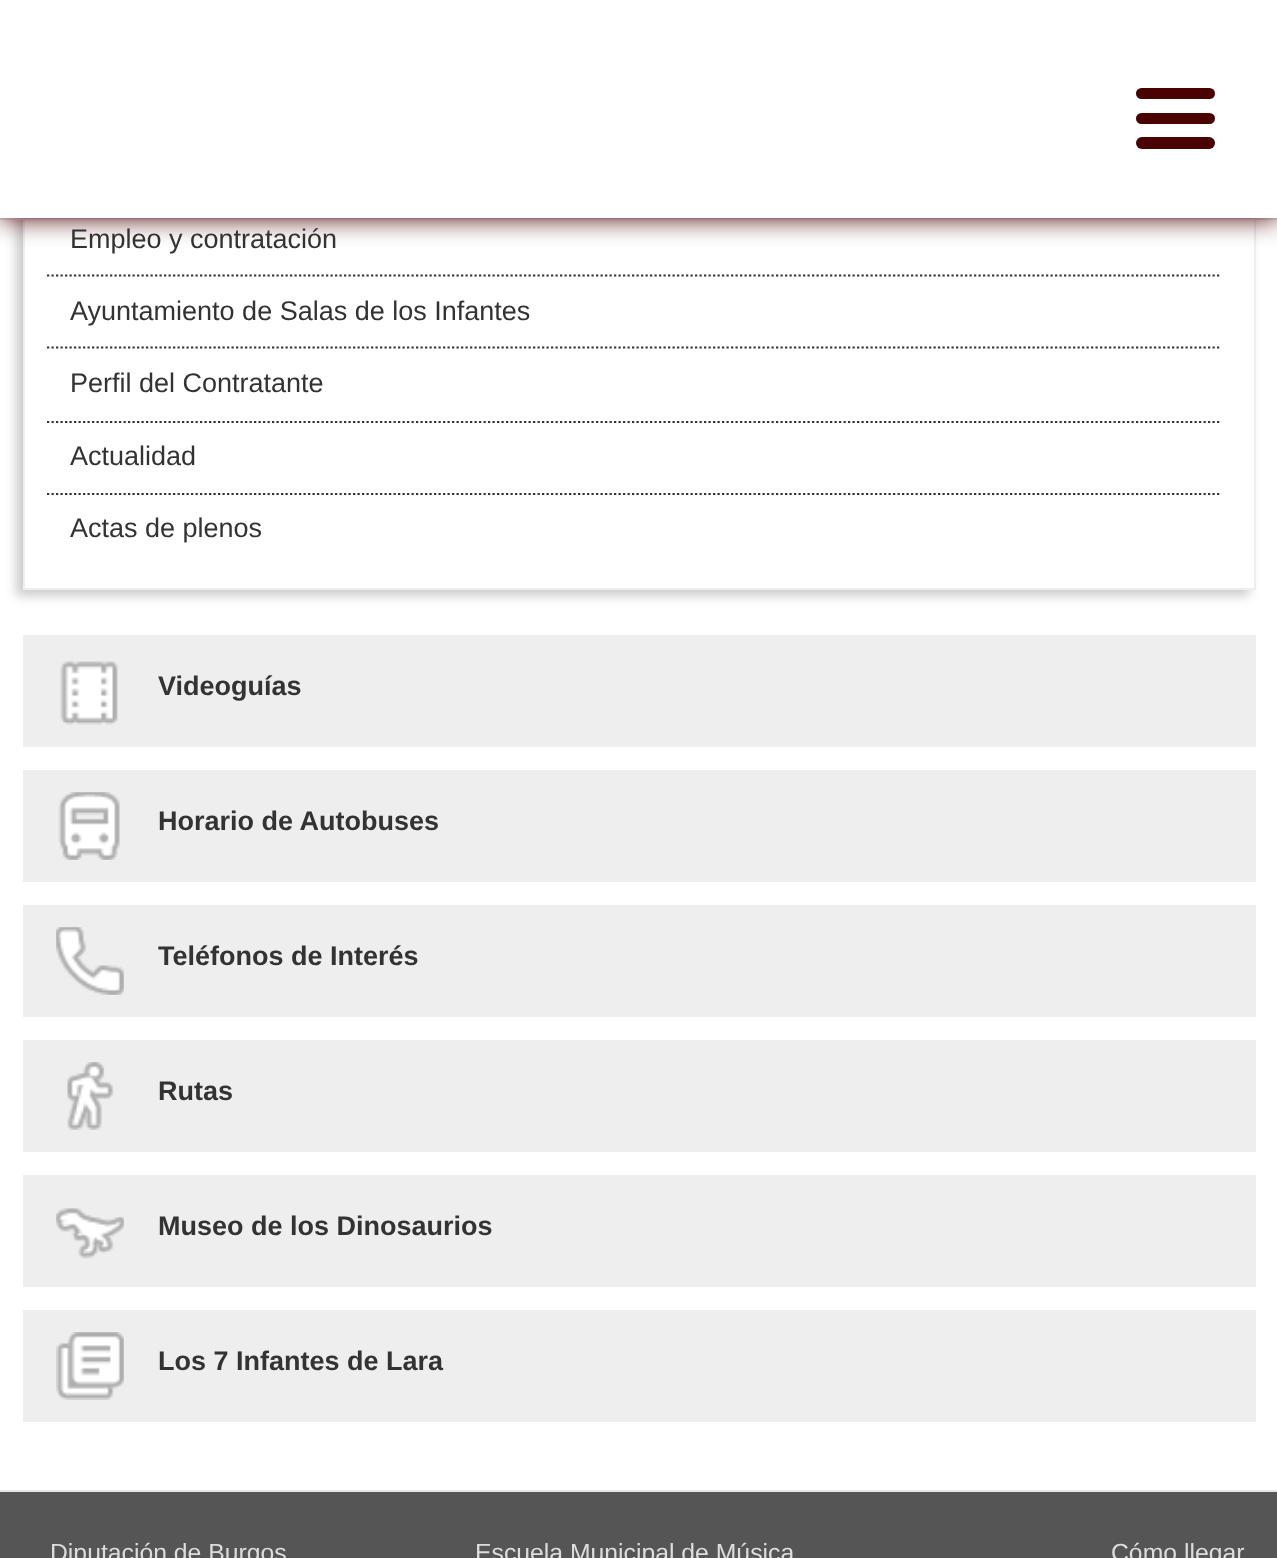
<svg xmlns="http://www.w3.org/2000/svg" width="1277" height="1558">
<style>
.a{font:27px Liberation Sans;fill:#333}
.b{font:bold 27px Liberation Sans;fill:#333}
.c{font:24.75px Liberation Sans;fill:#ddd}
</style>
<defs>
<clipPath id="clip1"><path d="M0 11h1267v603h-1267zm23 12h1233v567h-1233z" clip-rule="evenodd"/></clipPath>
</defs>
<rect width="100%" height="100%" fill="#fff"/>
<g clip-path="url(#clip1)">
<path fill="#ccc" filter="blur(5.5px)" d="M16 29h1233v567H16z"/>
</g>
<path fill="none" stroke="#eee" stroke-width="2" d="M24 24h1231v565H24z"/>
<path fill="#e7e7e7" d="M0 218h1277v2H0z"/>
<path fill="#4a0101" filter="blur(13.5px)" d="M0 0h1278v218H0z"/>
<path fill="#fff" d="M0 0h1277v218H0z"/>
<rect fill="#4a0101" x="1136" y="88" width="79" height="11" rx="5.5"/>
<rect fill="#4a0101" x="1136" y="113" width="79" height="11" rx="5.5"/>
<rect fill="#4a0101" x="1136" y="137" width="79" height="12" rx="6"/>
<path fill="none" stroke="#333" stroke-width="2.2" stroke-dasharray="2.25 2.25" d="M47 275.5h1172.5"/>
<path fill="none" stroke="#333" stroke-width="2.2" stroke-dasharray="2.25 2.25" d="M47 347.5h1172.5"/>
<path fill="none" stroke="#333" stroke-width="2.2" stroke-dasharray="2.25 2.25" d="M47 422h1172.5"/>
<path fill="none" stroke="#333" stroke-width="2.2" stroke-dasharray="2.25 2.25" d="M47 494h1172.5"/>
<path fill="#eee" d="M23 635h1233v112H23z"/>
<image href="1.png" x="60" y="661" width="58" height="64"/>
<path fill="#eee" d="M23 770h1233v112H23z"/>
<image href="2.png" x="58" y="792" width="62" height="68"/>
<path fill="#eee" d="M23 905h1233v112H23z"/>
<image href="3.png" x="56" y="927" width="68" height="68"/>
<path fill="#eee" d="M23 1040h1233v112H23z"/>
<image href="4.png" x="67" y="1062" width="47" height="68"/>
<path fill="#eee" d="M23 1175h1233v112H23z"/>
<image href="5.png" x="56" y="1208" width="68" height="51"/>
<path fill="#eee" d="M23 1310h1233v112H23z"/>
<image href="6.png" x="56" y="1332" width="68" height="68"/>
<path fill="#555" d="M0 1492h1277v66H0z"/>
<path fill="#e5e5e5" d="M0 1490h1277v2H0z"/>
<text class="a" x="70" y="248">Empleo y contratación</text>
<text class="a" x="70" y="320">Ayuntamiento de Salas de los Infantes</text>
<text class="a" x="70" y="392">Perfil del Contratante</text>
<text class="a" x="70" y="465">Actualidad</text>
<text class="a" x="70" y="537">Actas de plenos</text>
<text class="b" x="158" y="695">Videoguías</text>
<text class="b" x="158" y="830">Horario de Autobuses</text>
<text class="b" x="158" y="965">Teléfonos de Interés</text>
<text class="b" x="158" y="1100">Rutas</text>
<text class="b" x="158" y="1235">Museo de los Dinosaurios</text>
<text class="b" x="158" y="1370">Los 7 Infantes de Lara</text>
<text class="c" x="50" y="1561">Diputación de Burgos</text>
<text class="c" x="475" y="1561">Escuela Municipal de Música</text>
<text class="c" x="1111" y="1561">Cómo llegar</text>
</svg>
